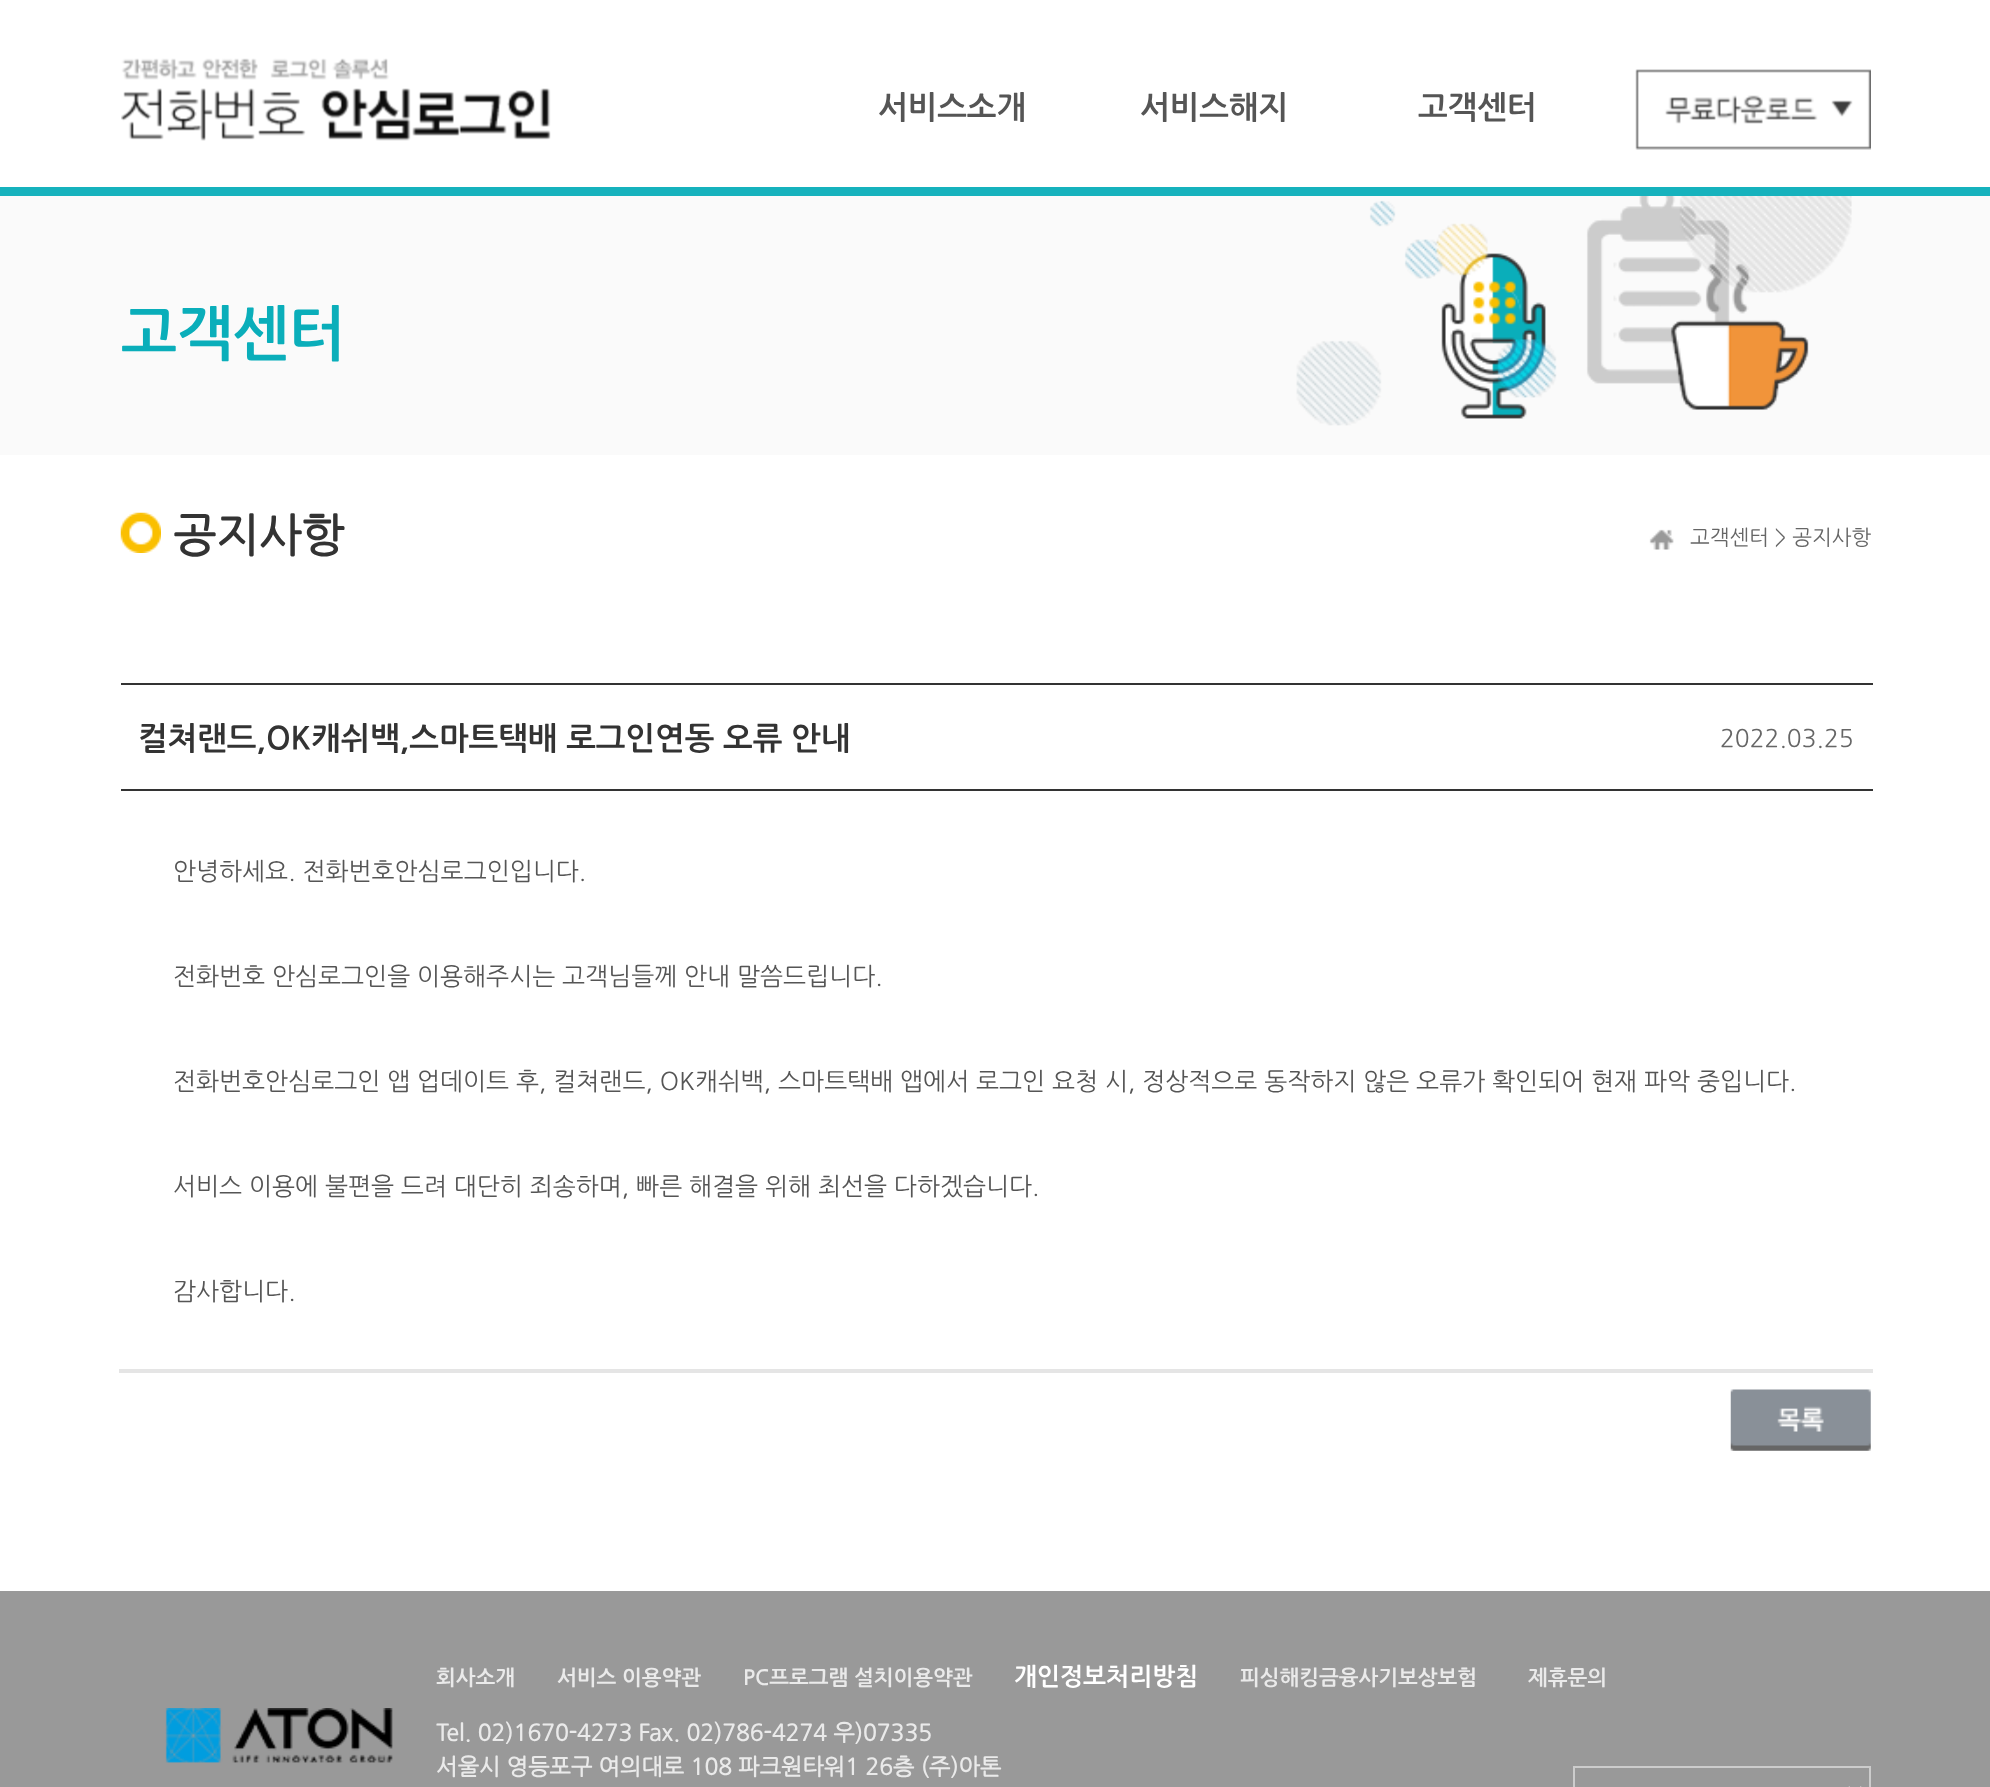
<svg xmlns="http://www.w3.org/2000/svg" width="1990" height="1787">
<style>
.a{font:bold 31.5px NanumGothic;fill:#555}
.b{font:bold 59.5px NanumGothic;fill:#0aaeba}
.c{font:bold 45.5px 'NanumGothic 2';fill:#333}
.d{font:21px NanumGothic;fill:#666}
.e{font:bold 31.5px NanumGothic;fill:#333}
.f{font:24.5px NanumGothic;fill:#666}
.g{font:24.5px NanumGothic;fill:#555}
.h{font:bold 21px NanumGothic;fill:#eaeaea}
.i{font:bold 24.5px NanumGothic;fill:#fff}
.j{font:bold 22.75px 'NanumGothic 2';fill:#eaeaea}
</style>
<rect width="100%" height="100%" fill="#fff"/>
<path fill="#fafafa" d="M0 0h1990v455H0z"/>
<path fill="#fffffff2" d="M0 0h1990v187H0z"/>
<path fill="#16b2bd" d="M0 187h1990v9H0z"/>
<image href="1.png" x="121" y="58" width="430" height="83"/>
<image href="2.png" x="1635" y="69" width="236" height="81"/>
<image href="3.png" x="1296" y="196" width="556" height="230"/>
<image href="4.png" x="120" y="512" width="41" height="41"/>
<image href="5.png" x="1649" y="529" width="25" height="21"/>
<path fill="#333" d="M121 683h1752v2H121z"/>
<path fill="#333" d="M121 789h1752v2H121z"/>
<path fill="#e5e5e5" d="M119 1369h1754v4H119z"/>
<image href="6.png" x="1730" y="1389" width="141" height="62"/>
<path fill="#999" d="M0 1591h1990v196H0z"/>
<image href="7.png" x="165" y="1708" width="228" height="55"/>
<path fill="none" stroke="#ccc" stroke-width="2" d="M1574 1767h296v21H1574z"/>
<path fill="none" stroke="#eaeaea" stroke-width="3.5" d="M1848 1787.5l7 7l7-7"/>
<text class="a" x="878" y="117">서비스소개</text>
<text class="a" x="1140" y="117">서비스해지</text>
<text class="a" x="1418" y="117">고객센터</text>
<text class="b" x="121" y="352">고객센터</text>
<text class="c" x="173" y="550">공지사항</text>
<text class="d" x="1690" y="544">고객센터 &gt; 공지사항</text>
<text class="e" x="138" y="748">컬쳐랜드,OK캐쉬백,스마트택배 로그인연동 오류 안내</text>
<text class="f" x="1720" y="746">2022.03.25</text>
<text class="g" x="173" y="879">안녕하세요. 전화번호안심로그인입니다.</text>
<text class="g" x="173" y="984">전화번호 안심로그인을 이용해주시는 고객님들께 안내 말씀드립니다.</text>
<text class="g" x="173" y="1089">전화번호안심로그인 앱 업데이트 후, 컬쳐랜드, OK캐쉬백, 스마트택배 앱에서 로그인 요청 시, 정상적으로 동작하지 않은 오류가 확인되어 현재 파악 중입니다.</text>
<text class="g" x="173" y="1194">서비스 이용에 불편을 드려 대단히 죄송하며, 빠른 해결을 위해 최선을 다하겠습니다.</text>
<text class="g" x="173" y="1299">감사합니다.</text>
<text class="h" x="436" y="1684">회사소개</text>
<text class="h" x="557" y="1684">서비스 이용약관</text>
<text class="h" x="743" y="1684">PC프로그램 설치이용약관</text>
<text class="i" x="1014" y="1684">개인정보처리방침</text>
<text class="h" x="1240" y="1684">피싱해킹금융사기보상보험</text>
<text class="h" x="1528" y="1684">제휴문의</text>
<text class="j" x="436" y="1740">Tel. 02)1670-4273 Fax. 02)786-4274 우)07335</text>
<text class="j" x="436" y="1774">서울시 영등포구 여의대로 108 파크원타워1 26층 (주)아톤</text>
</svg>
